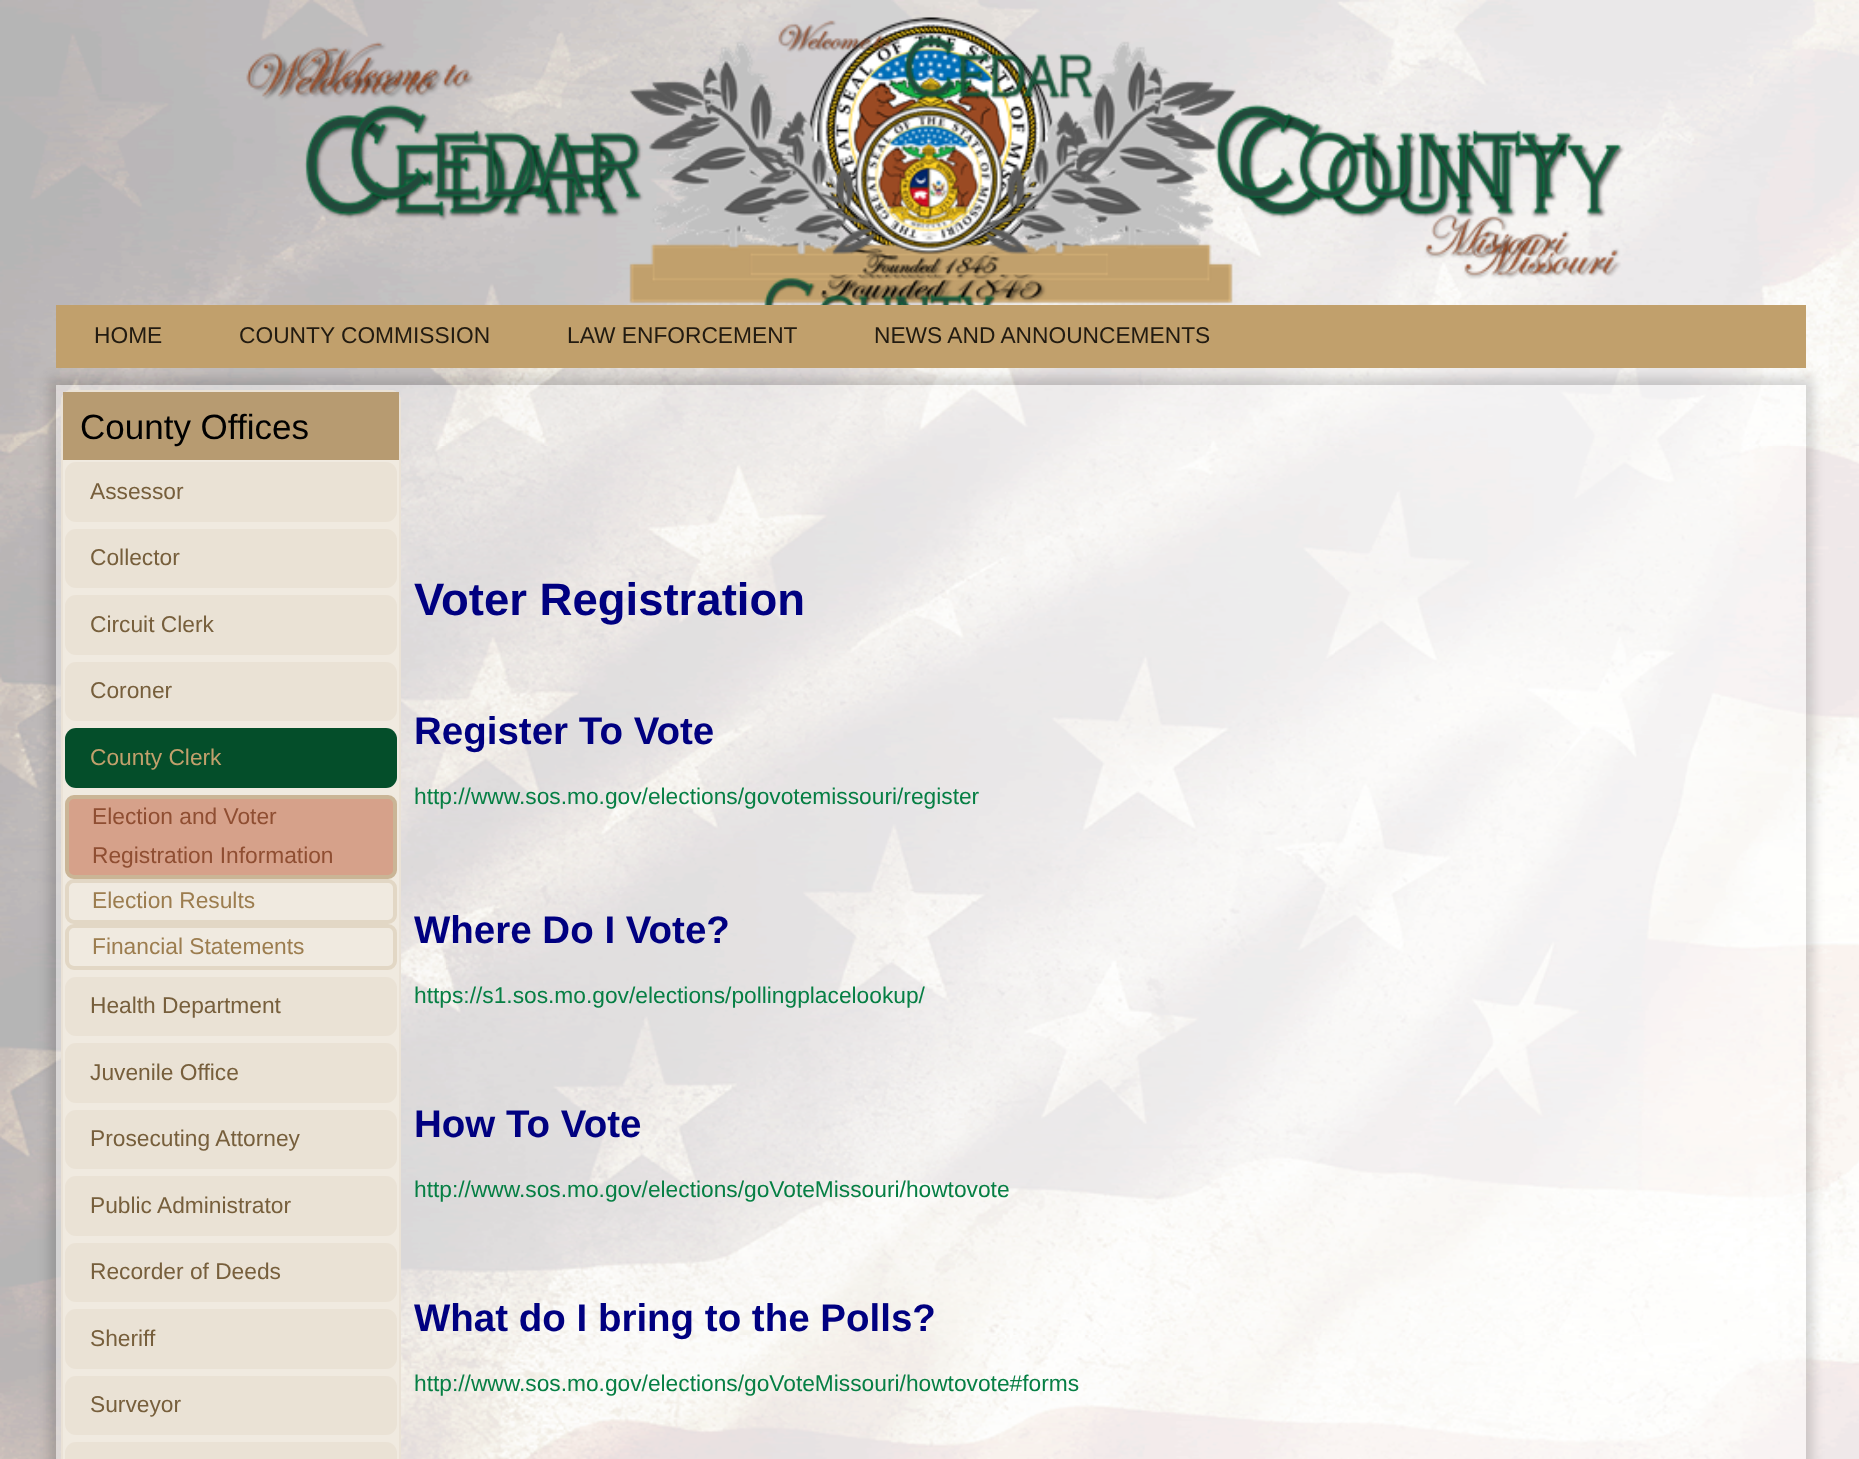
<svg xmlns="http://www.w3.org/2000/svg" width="1859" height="1459">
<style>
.a{font:22.75px Liberation Sans;fill:#221b11}
.b{font:35px Liberation Sans;fill:#000}
.c{font:22.75px Liberation Sans;fill:#775f3c}
.d{font:22.75px Liberation Sans;fill:#c1a06c}
.e{font:22.75px Liberation Sans;fill:#8f4e32}
.f{font:22.75px Liberation Sans;fill:#9c7d4f}
.g{font:bold 45.5px Liberation Sans;fill:#000080}
.h{font:bold 38.5px Liberation Sans;fill:#000080}
.i{font:22.75px Liberation Sans;fill:#067f44}
</style>
<defs>
<clipPath id="clip1"><path d="M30 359h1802v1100h-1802zm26 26h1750v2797h-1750z" clip-rule="evenodd"/></clipPath>
</defs>
<rect width="100%" height="100%" fill="#fff"/>
<image href="1.png" x="0" y="0" width="1859" height="1459"/>
<image href="2.png" x="246" y="17" width="1379" height="288"/>
<g clip-path="url(#clip1)">
<path fill="#00000029" filter="blur(6px)" d="M49 378h1764v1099H49z"/>
</g>
<path fill="#c1a06c" d="M56 305h1750v63H56z"/>
<path fill="#ffffff66" d="M56 385h1750v1074H56z"/>
<rect fill="#f0eae0" x="61" y="390" width="340" height="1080" rx="11"/>
<rect fill="none" stroke="#e9e0d3cc" stroke-width="2" x="62" y="391" width="338" height="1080" rx="10"/>
<path fill="#b79b71" d="M63 392h336v68H63z"/>
<rect fill="#eae2d5" x="65" y="462" width="332" height="60" rx="11"/>
<rect fill="#eae2d5" x="65" y="529" width="332" height="59" rx="11"/>
<rect fill="#eae2d5" x="65" y="595" width="332" height="60" rx="11"/>
<rect fill="#eae2d5" x="65" y="662" width="332" height="59" rx="11"/>
<rect fill="#044e2a" x="65" y="728" width="332" height="60" rx="11"/>
<rect fill="#d6a18a" stroke="#cab596" stroke-width="4" x="67" y="797" width="328" height="80" rx="7"/>
<rect fill="none" stroke="#e2d7c5" stroke-width="4" x="67" y="881" width="328" height="41" rx="7"/>
<rect fill="none" stroke="#e2d7c5" stroke-width="4" x="67" y="926" width="328" height="42" rx="7"/>
<rect fill="#eae2d5" x="65" y="977" width="332" height="59" rx="11"/>
<rect fill="#eae2d5" x="65" y="1043" width="332" height="60" rx="11"/>
<rect fill="#eae2d5" x="65" y="1110" width="332" height="59" rx="11"/>
<rect fill="#eae2d5" x="65" y="1176" width="332" height="60" rx="11"/>
<rect fill="#eae2d5" x="65" y="1243" width="332" height="59" rx="11"/>
<rect fill="#eae2d5" x="65" y="1309" width="332" height="60" rx="11"/>
<rect fill="#eae2d5" x="65" y="1376" width="332" height="59" rx="11"/>
<rect fill="#eae2d5" x="65" y="1442" width="332" height="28" rx="11"/>
<text class="a" x="94" y="343">HOME</text>
<text class="a" x="239" y="343">COUNTY COMMISSION</text>
<text class="a" x="567" y="343">LAW ENFORCEMENT</text>
<text class="a" x="874" y="343">NEWS AND ANNOUNCEMENTS</text>
<text class="b" x="80" y="439">County Offices</text>
<text class="c" x="90" y="499">Assessor</text>
<text class="c" x="90" y="565">Collector</text>
<text class="c" x="90" y="632">Circuit Clerk</text>
<text class="c" x="90" y="698">Coroner</text>
<text class="d" x="90" y="765">County Clerk</text>
<text class="e" x="92" y="824">Election and Voter</text>
<text class="e" x="92" y="863">Registration Information</text>
<text class="f" x="92" y="908">Election Results</text>
<text class="f" x="92" y="954">Financial Statements</text>
<text class="c" x="90" y="1013">Health Department</text>
<text class="c" x="90" y="1080">Juvenile Office</text>
<text class="c" x="90" y="1146">Prosecuting Attorney</text>
<text class="c" x="90" y="1213">Public Administrator</text>
<text class="c" x="90" y="1279">Recorder of Deeds</text>
<text class="c" x="90" y="1346">Sheriff</text>
<text class="c" x="90" y="1412">Surveyor</text>
<text class="g" x="414" y="615">Voter Registration</text>
<text class="h" x="414" y="744">Register To Vote</text>
<text class="i" x="414" y="804">http://www.sos.mo.gov/elections/govotemissouri/register</text>
<text class="h" x="414" y="943">Where Do I Vote?</text>
<text class="i" x="414" y="1003">https://s1.sos.mo.gov/elections/pollingplacelookup/</text>
<text class="h" x="414" y="1137">How To Vote</text>
<text class="i" x="414" y="1197">http://www.sos.mo.gov/elections/goVoteMissouri/howtovote</text>
<text class="h" x="414" y="1331">What do I bring to the Polls?</text>
<text class="i" x="414" y="1391">http://www.sos.mo.gov/elections/goVoteMissouri/howtovote#forms</text>
</svg>
